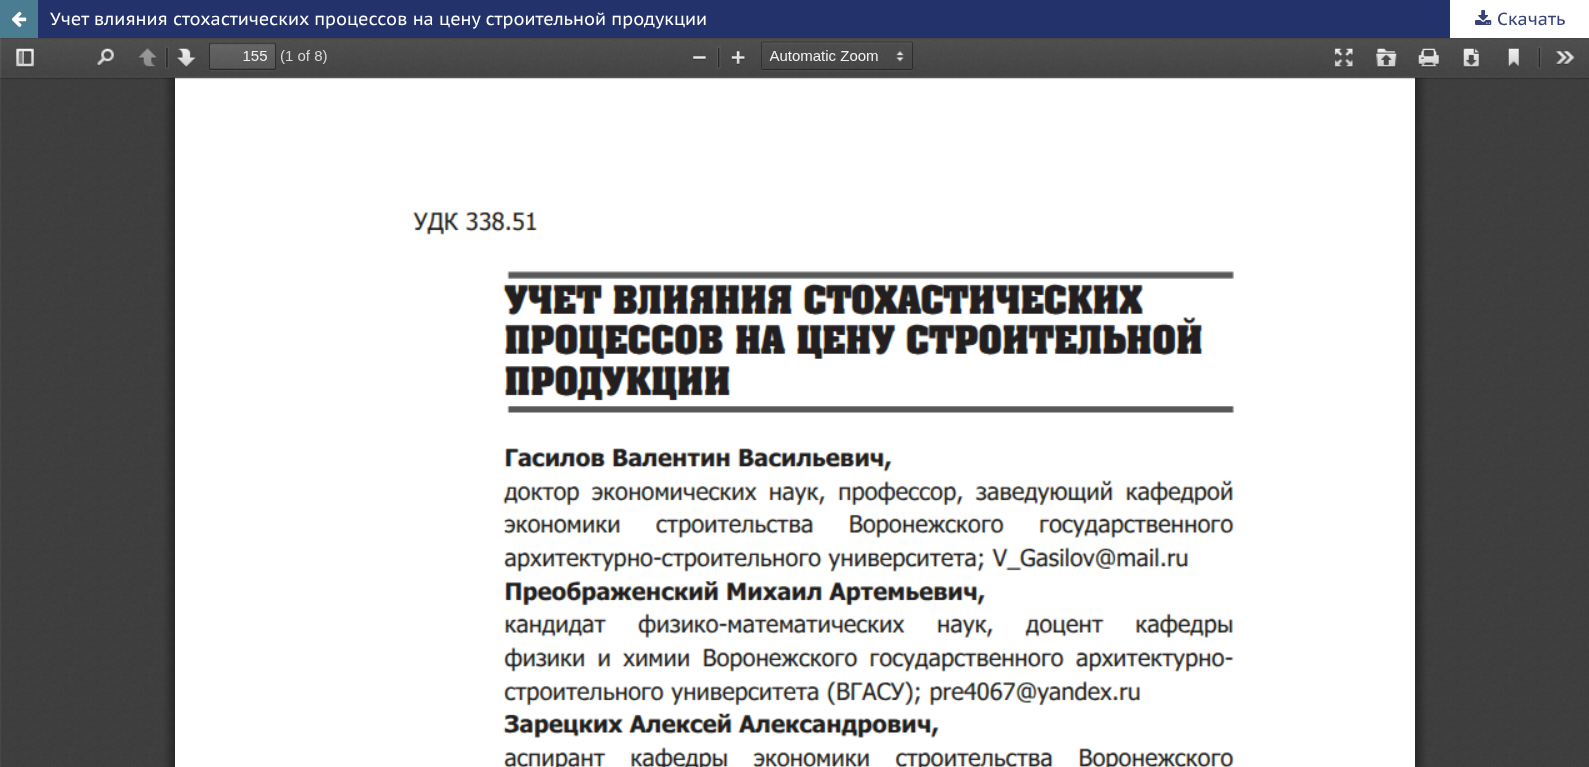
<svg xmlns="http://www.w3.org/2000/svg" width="1589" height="767">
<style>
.a{font:17.5px PT Sans Caption;fill:#fff}
.b{font:17.5px PT Sans Caption;fill:#374278}
</style>
<rect width="100%" height="100%" fill="#fff"/>
<path fill="#23326b" d="M38 0h1412v38H38z"/>
<path fill="#4b7d92" d="M0 0h38v38H0z"/>
<image href="1.png" x="11" y="11" width="16" height="16"/>
<image href="2.png" x="1475" y="10" width="17" height="15"/>
<image href="3.png" x="0" y="38" width="1589" height="729"/>
<text class="a" x="50" y="25" word-spacing="0.25">Учет влияния стохастических процессов на цену строительной продукции</text>
<text class="b" x="1497" y="25">Скачать</text>
</svg>
